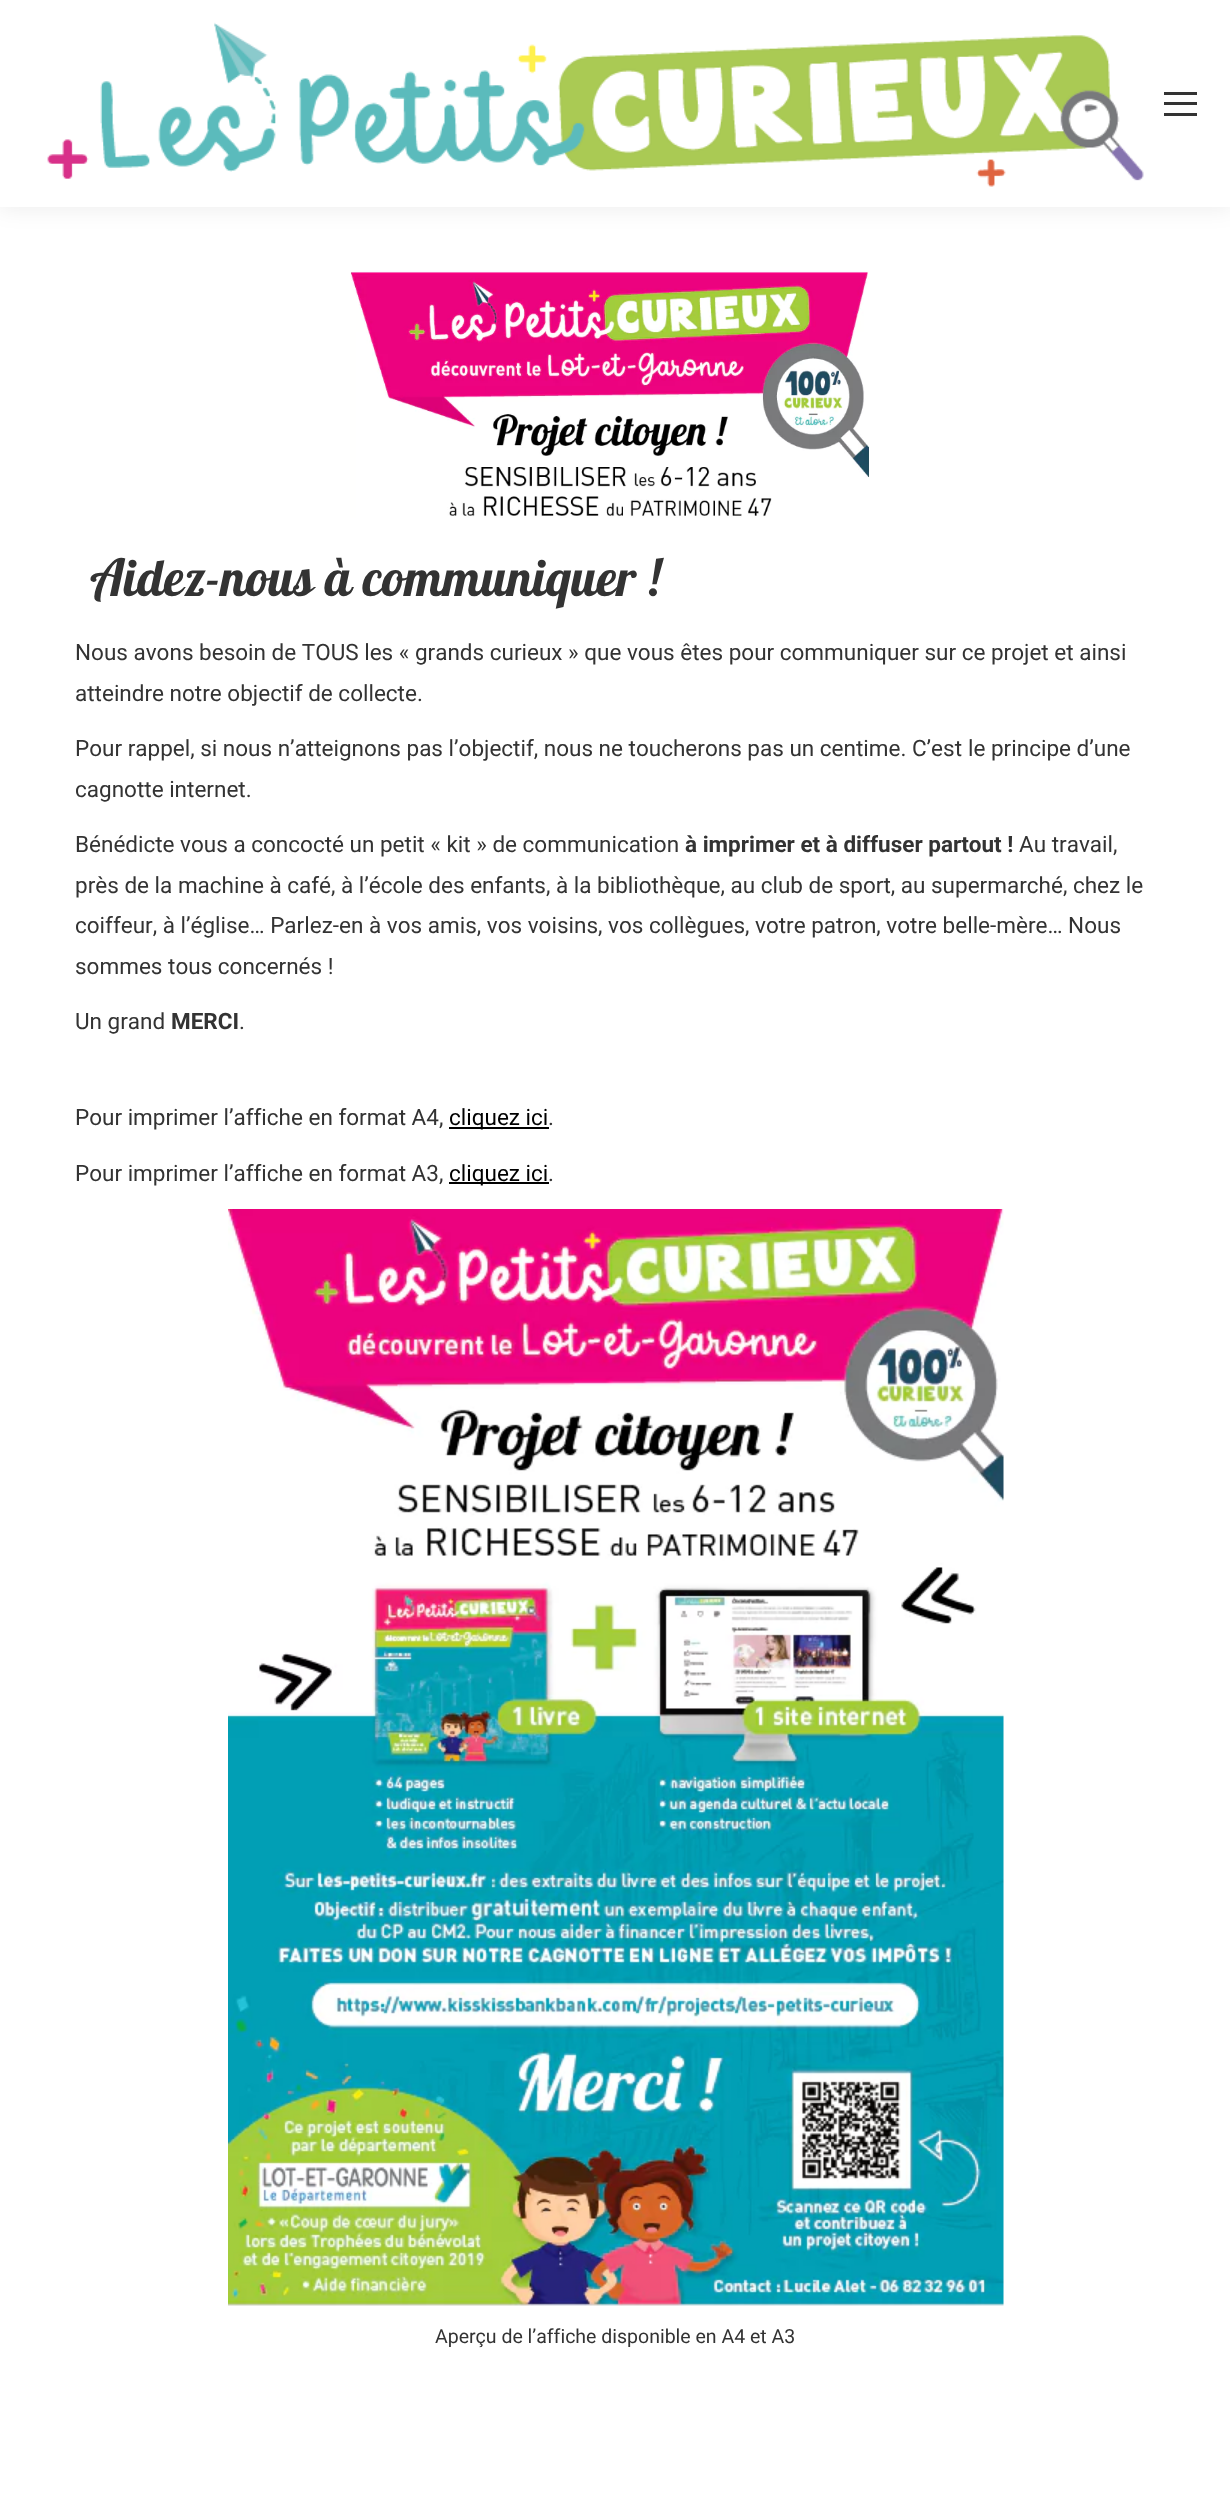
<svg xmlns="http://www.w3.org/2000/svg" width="1230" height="2506">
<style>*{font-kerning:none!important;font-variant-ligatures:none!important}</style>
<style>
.a{font:51px Lobster;fill:#333}
.b{font:22.5px Roboto;fill:#333}
.c{font:bold 22.5px Roboto;fill:#333}
.d{font:22.5px Roboto;fill:#000}
.e{font:19.5px Roboto;fill:#333}
</style>
<rect width="100%" height="100%" fill="#fff"/>
<path fill="#00000012" filter="blur(11px)" d="M-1 -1h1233v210H-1z"/>
<path fill="#fff" d="M0 0h1230v207H0z"/>
<image href="1.png" x="47" y="22" width="1097" height="165"/>
<path fill="#333" d="M1164 92h33v3H1164z"/>
<path fill="#333" d="M1164 102h33v3H1164z"/>
<path fill="#333" d="M1164 113h33v3H1164z"/>
<image href="2.png" x="350" y="270" width="520" height="248"/>
<path fill="#000" d="M449 1127h100v2H449z"/>
<path fill="#000" d="M449 1182h100v2H449z"/>
<image href="3.png" x="228" y="1209" width="776" height="1097"/>
<text class="a" x="90" y="596">Aidez-nous à communiquer !</text>
<text class="b" x="75" y="660">Nous avons besoin de TOUS les « grands curieux » que vous êtes pour communiquer sur ce projet et ainsi</text>
<text class="b" x="75" y="701">atteindre notre objectif de collecte.</text>
<text class="b" x="75" y="756">Pour rappel, si nous n’atteignons pas l’objectif, nous ne toucherons pas un centime. C’est</text>
<text class="b" x="968" y="756">le principe d’une</text>
<text class="b" x="75" y="797">cagnotte internet.</text>
<text class="b" x="75" y="852">Bénédicte vous a concocté un petit « kit » de communication</text>
<text class="c" x="685" y="852">à imprimer et à diffuser partout !</text>
<text class="b" x="1019" y="852">Au travail,</text>
<text class="b" x="75" y="893">près de la machine à café, à l’école des enfants, à la bibliothèque, au club de sport, au supermarché, chez le</text>
<text class="b" x="75" y="933">coiffeur, à l’église… Parlez-en à vos amis, vos voisins, vos collègues, votre patron, votre belle-mère… Nous</text>
<text class="b" x="75" y="974">sommes tous concernés !</text>
<text class="b" x="75" y="1029">Un grand</text>
<text class="c" x="171" y="1029">MERCI</text>
<text class="b" x="239" y="1029">.</text>
<text class="b" x="75" y="1125">Pour imprimer l’affiche en format A4,</text>
<text class="d" x="449" y="1125">cliquez ici</text>
<text class="b" x="548" y="1125">.</text>
<text class="b" x="75" y="1181">Pour imprimer l’affiche en format A3,</text>
<text class="d" x="449" y="1181">cliquez ici</text>
<text class="b" x="548" y="1181">.</text>
<text class="e" x="435" y="2343">Aperçu de l’affiche disponible en A4 et A3</text>
</svg>
